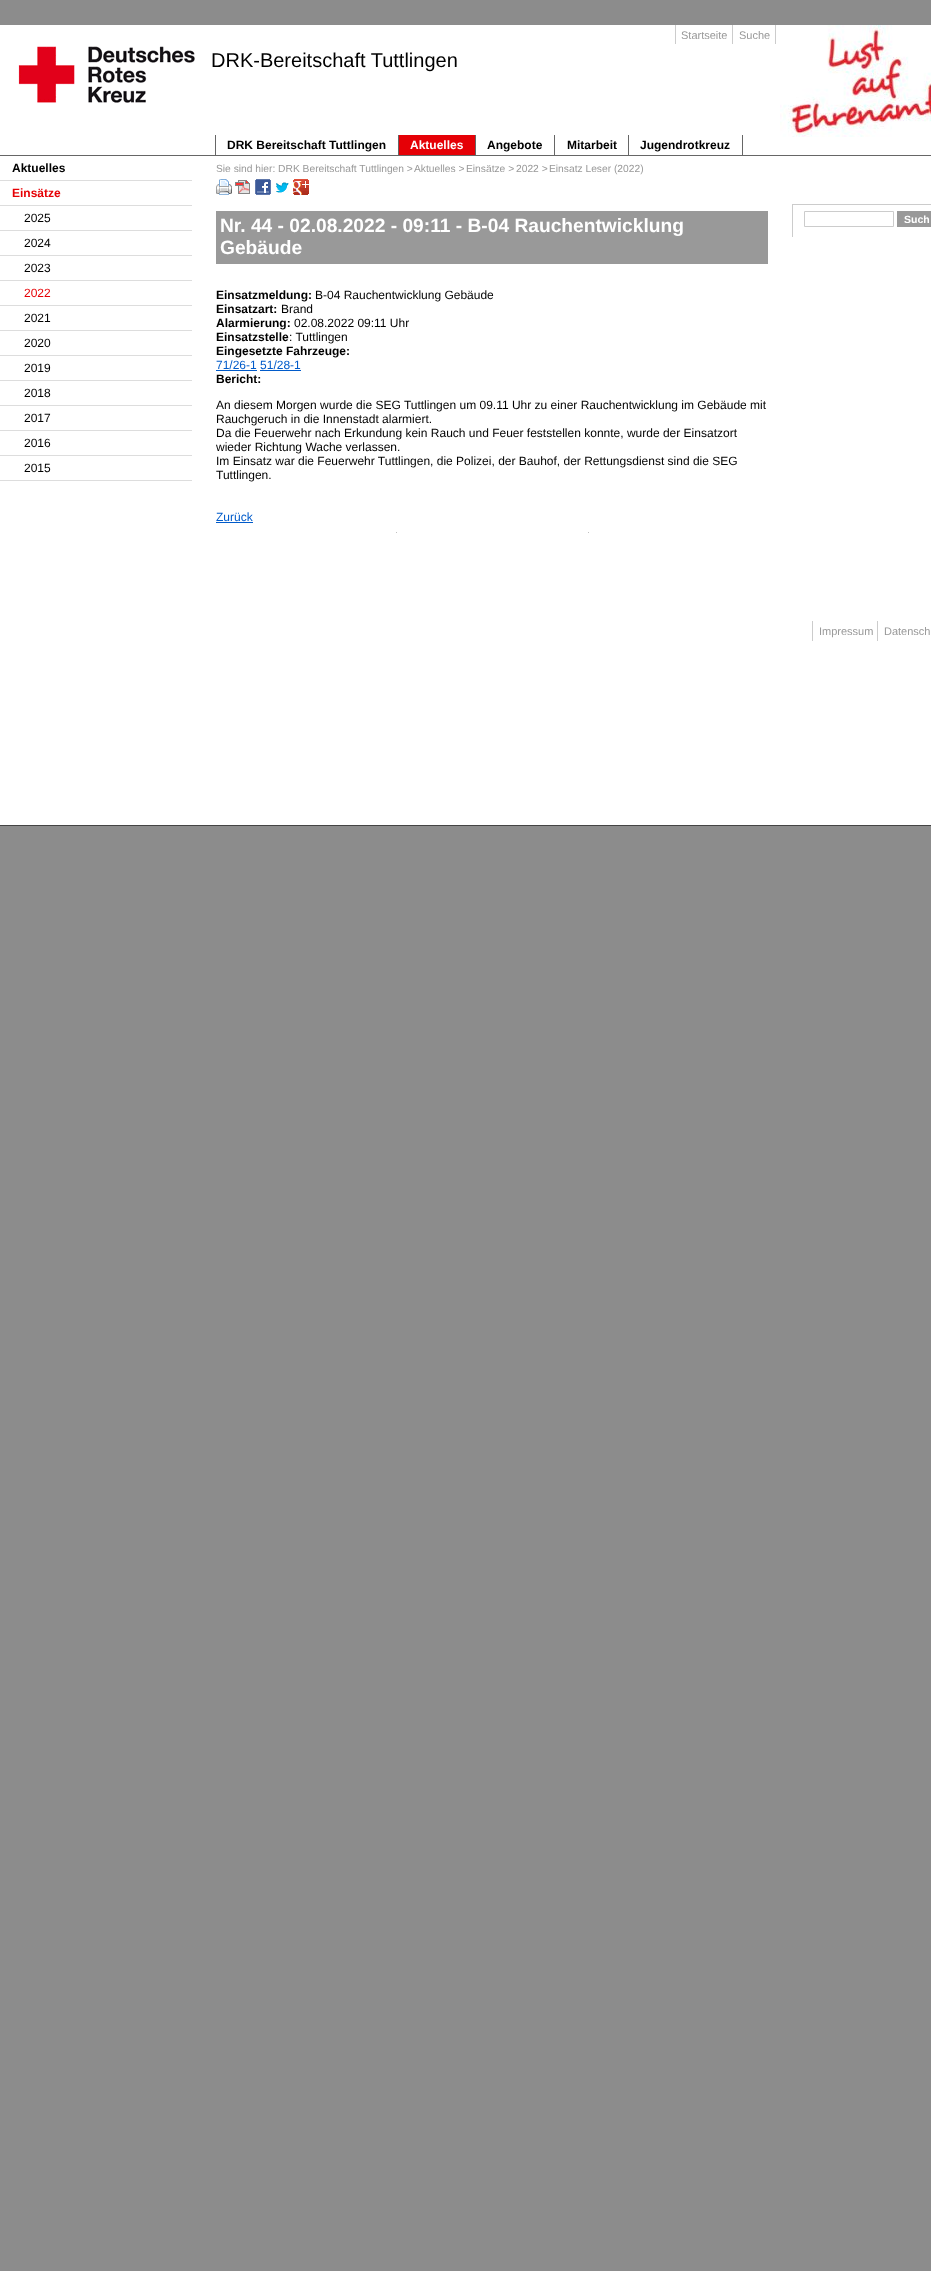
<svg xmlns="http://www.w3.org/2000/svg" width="931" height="2271">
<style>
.a{font:11px Liberation Sans;fill:#999}
.b{font:20px Liberation Sans;fill:#000}
.c{font:bold 12px Liberation Sans;fill:#000}
.d{font:bold 12px Liberation Sans;fill:#fff}
.e{font:bold 12px Liberation Sans;fill:#e60005}
.f{font:12px Liberation Sans;fill:#000}
.g{font:12px Liberation Sans;fill:#e60005}
.h{font:10.25px Liberation Sans;fill:#999}
.i{font:bold 19.2px Liberation Sans;fill:#fff}
.j{font:12px Liberation Sans;fill:#015bca}
.k{font:bold 10.5px Liberation Sans;fill:#fff}
</style>
<rect width="100%" height="100%" fill="#8c8c8c"/>
<path fill="#fff" d="M0 25h931v800H0z"/>
<path fill="#444" d="M0 825h931v1H0z"/>
<path fill="#ccc" d="M732 25h1v19H732z"/>
<path fill="#ccc" d="M675 25h1v19H675z"/>
<path fill="#ccc" d="M775 25h1v19H775z"/>
<image href="1.png" x="780" y="25" width="151" height="112"/>
<image href="2.png" x="18" y="46" width="177" height="57"/>
<path fill="#666" d="M0 155h931v1H0z"/>
<path fill="#666" d="M398 135h1v20H398z"/>
<path fill="#666" d="M215 135h1v20H215z"/>
<path fill="#666" d="M475 135h1v20H475z"/>
<path fill="#e50006" d="M399 135h76v20H399z"/>
<path fill="#666" d="M554 135h1v20H554z"/>
<path fill="#666" d="M628 135h1v20H628z"/>
<path fill="#666" d="M742 135h1v20H742z"/>
<path fill="#ddd" d="M0 180h192v1H0z"/>
<path fill="#ddd" d="M0 205h192v1H0z"/>
<path fill="#ddd" d="M0 230h192v1H0z"/>
<path fill="#ddd" d="M0 255h192v1H0z"/>
<path fill="#ddd" d="M0 280h192v1H0z"/>
<path fill="#ddd" d="M0 305h192v1H0z"/>
<path fill="#ddd" d="M0 330h192v1H0z"/>
<path fill="#ddd" d="M0 355h192v1H0z"/>
<path fill="#ddd" d="M0 380h192v1H0z"/>
<path fill="#ddd" d="M0 405h192v1H0z"/>
<path fill="#ddd" d="M0 430h192v1H0z"/>
<path fill="#ddd" d="M0 455h192v1H0z"/>
<path fill="#ddd" d="M0 480h192v1H0z"/>
<image href="3.png" x="216" y="179" width="16" height="16"/>
<image href="4.png" x="235" y="180" width="15" height="14"/>
<image href="5.png" x="255" y="179" width="16" height="16"/>
<image href="6.png" x="276" y="182" width="13" height="11"/>
<image href="7.png" x="293" y="179" width="16" height="16"/>
<path fill="#999" d="M216 211h552v53H216z"/>
<path fill="#015bca" d="M216 370h41v1H216z"/>
<path fill="#015bca" d="M260 370h41v1H260z"/>
<path fill="#015bca" d="M216 522h37v1H216z"/>
<path fill="#c0c0c0" d="M396 532h1v1H396z"/>
<path fill="#c0c0c0" d="M588 532h1v1H588z"/>
<path fill="#ccc" d="M792 204h139v1H792z"/>
<path fill="#ccc" d="M792 204h1v33H792z"/>
<path fill="none" stroke="#ccc" d="M804.5 211.5h89v15H804.5z"/>
<path fill="#999" d="M897 211h34v16H897z"/>
<path fill="#ccc" d="M877 621h1v20H877z"/>
<path fill="#ccc" d="M812 621h1v20H812z"/>
<text class="a" x="681" y="39">Startseite</text>
<text class="a" x="739" y="39">Suche</text>
<text class="b" x="211" y="67">DRK-Bereitschaft Tuttlingen</text>
<text class="c" x="227" y="149">DRK Bereitschaft Tuttlingen</text>
<text class="d" x="410" y="149">Aktuelles</text>
<text class="c" x="487" y="149">Angebote</text>
<text class="c" x="567" y="149">Mitarbeit</text>
<text class="c" x="640" y="149">Jugendrotkreuz</text>
<text class="c" x="12" y="172">Aktuelles</text>
<text class="e" x="12" y="197">Einsätze</text>
<text class="f" x="24" y="222">2025</text>
<text class="f" x="24" y="247">2024</text>
<text class="f" x="24" y="272">2023</text>
<text class="g" x="24" y="297">2022</text>
<text class="f" x="24" y="322">2021</text>
<text class="f" x="24" y="347">2020</text>
<text class="f" x="24" y="372">2019</text>
<text class="f" x="24" y="397">2018</text>
<text class="f" x="24" y="422">2017</text>
<text class="f" x="24" y="447">2016</text>
<text class="f" x="24" y="472">2015</text>
<text class="h" x="216" y="172">Sie sind hier: DRK Bereitschaft Tuttlingen &gt;</text>
<text class="h" x="414" y="172">Aktuelles &gt;</text>
<text class="h" x="466" y="172">Einsätze &gt;</text>
<text class="h" x="516" y="172">2022 &gt;</text>
<text class="h" x="549" y="172">Einsatz Leser (2022)</text>
<text class="i" x="220" y="232">Nr. 44 - 02.08.2022 - 09:11 - B-04 Rauchentwicklung</text>
<text class="i" x="220" y="254">Gebäude</text>
<text class="c" x="216" y="299">Einsatzmeldung:</text>
<text class="f" x="315" y="299">B-04 Rauchentwicklung Gebäude</text>
<text class="c" x="216" y="313">Einsatzart:</text>
<text class="f" x="281" y="313">Brand</text>
<text class="c" x="216" y="327">Alarmierung:</text>
<text class="f" x="294" y="327">02.08.2022 09:11 Uhr</text>
<text class="c" x="216" y="341">Einsatzstelle</text>
<text class="f" x="289" y="341">: Tuttlingen</text>
<text class="c" x="216" y="355">Eingesetzte Fahrzeuge:</text>
<text class="j" x="216" y="369">71/26-1 51/28-1</text>
<text class="c" x="216" y="383">Bericht:</text>
<text class="f" x="216" y="409">An diesem Morgen wurde die SEG Tuttlingen um 09.11 Uhr zu einer Rauchentwicklung im Gebäude mit</text>
<text class="f" x="216" y="423">Rauchgeruch in die Innenstadt alarmiert.</text>
<text class="f" x="216" y="437">Da die Feuerwehr nach Erkundung kein Rauch und Feuer feststellen konnte, wurde der Einsatzort</text>
<text class="f" x="216" y="451">wieder Richtung Wache verlassen.</text>
<text class="f" x="216" y="465">Im Einsatz war die Feuerwehr Tuttlingen, die Polizei, der Bauhof, der Rettungsdienst sind die SEG</text>
<text class="f" x="216" y="479">Tuttlingen.</text>
<text class="j" x="216" y="521">Zurück</text>
<text class="k" x="904" y="223">Such</text>
<text class="a" x="819" y="635">Impressum</text>
<text class="a" x="884" y="635">Datensch</text>
</svg>
